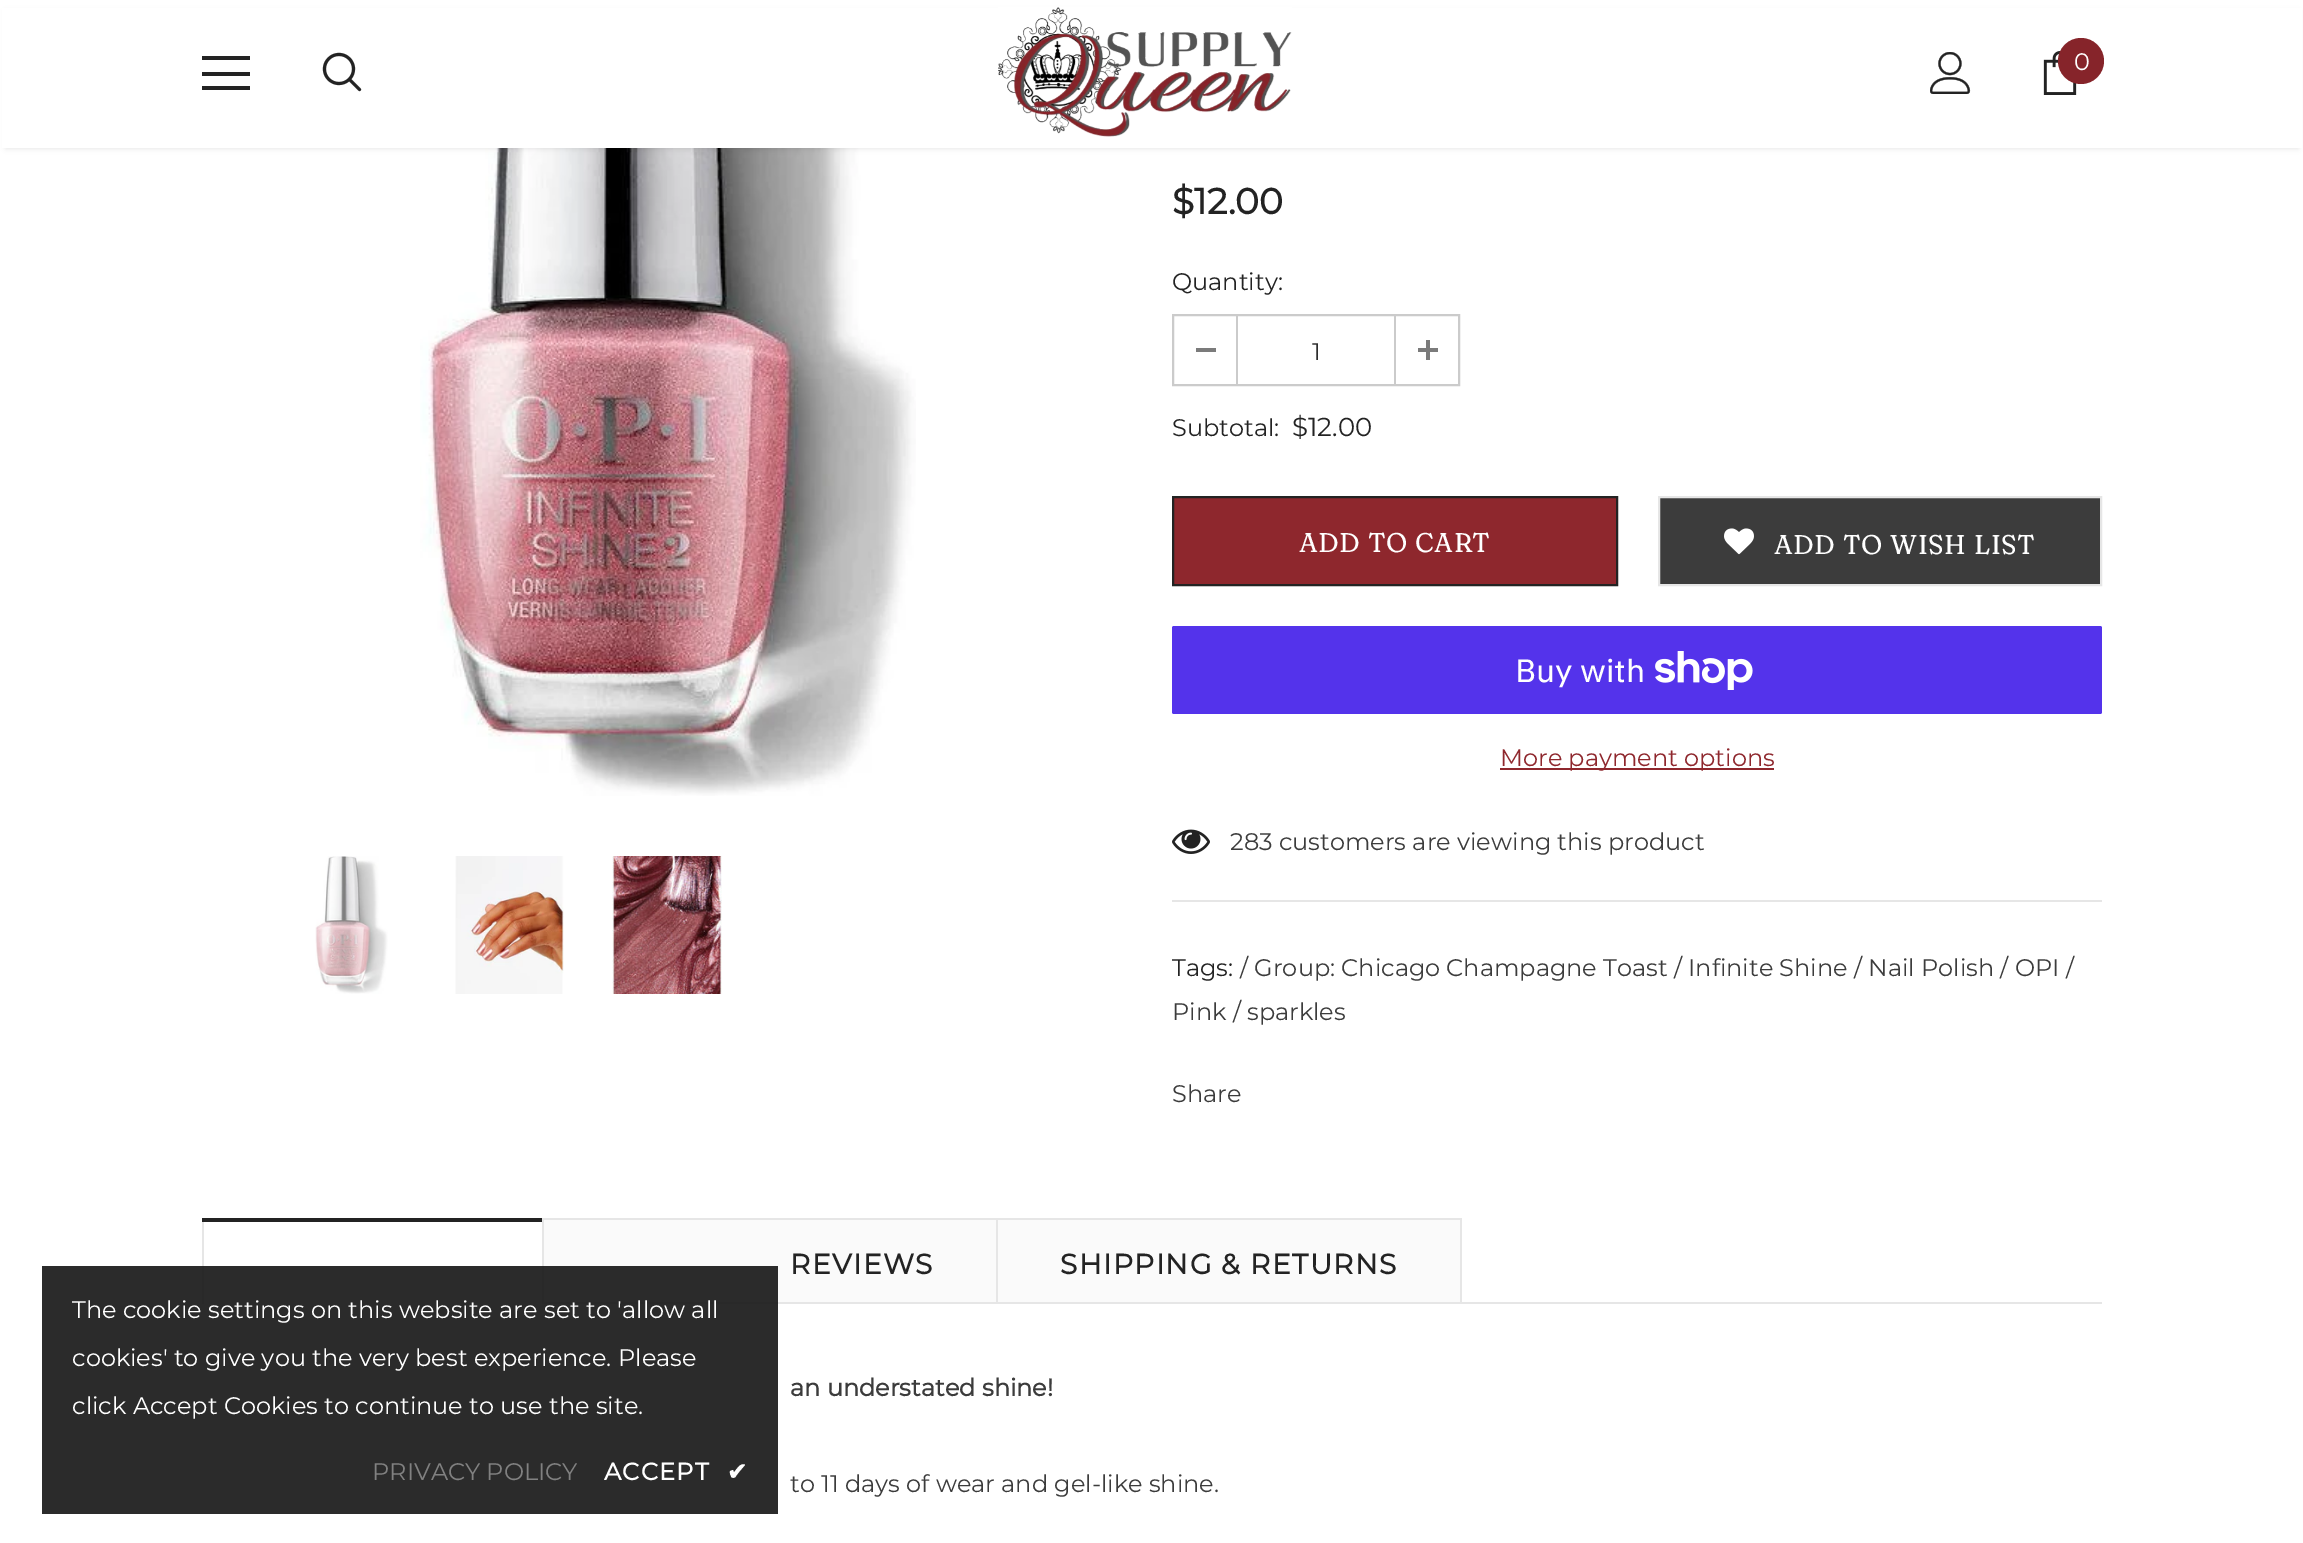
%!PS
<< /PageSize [2303 1543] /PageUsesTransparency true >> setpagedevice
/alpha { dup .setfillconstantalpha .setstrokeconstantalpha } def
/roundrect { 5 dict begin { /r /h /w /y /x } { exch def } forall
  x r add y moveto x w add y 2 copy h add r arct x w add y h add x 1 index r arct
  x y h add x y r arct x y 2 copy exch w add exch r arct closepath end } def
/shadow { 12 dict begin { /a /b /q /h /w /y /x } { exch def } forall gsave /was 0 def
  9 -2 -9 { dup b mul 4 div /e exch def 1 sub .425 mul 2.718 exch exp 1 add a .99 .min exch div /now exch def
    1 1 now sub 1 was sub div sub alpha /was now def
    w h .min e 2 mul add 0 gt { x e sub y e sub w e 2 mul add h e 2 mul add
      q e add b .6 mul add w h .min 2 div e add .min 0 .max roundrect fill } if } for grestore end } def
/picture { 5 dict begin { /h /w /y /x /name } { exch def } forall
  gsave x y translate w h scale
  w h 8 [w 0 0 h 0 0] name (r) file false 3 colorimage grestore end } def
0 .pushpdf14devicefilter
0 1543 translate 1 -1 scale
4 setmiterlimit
1 setgray
0 0 2303 1543 rectfill
(img5.rgb) 420 148 496 648 picture
0 setgray
6 12 2292 136 0 3 0.12 shadow
1 setgray
2 8 2300 140 rectfill
0.137 setgray
202 56 48 4 rectfill
202 72 48 4 rectfill
202 86 48 4 rectfill
(img1.rgb) 322 52 40 40 picture
(img2.rgb) 998 7 294 130 picture
(img3.rgb) 1930 52 41 42 picture
(img4.rgb) 2043 51 34 44 picture
0.525 0.141 0.165 setrgbcolor
newpath 2081 61 23 0 360 arc closepath fill
/Montserrat-Regular [24 0 0 -24 0 0] selectfont
1 setgray
2074 70 moveto (0) show
0.902 setgray
202 1302 1900 2 rectfill
202 1218 2 84 rectfill
1 setgray
204 1302 338 2 rectfill
0.98 setgray
544 1220 452 82 rectfill
0.137 setgray
202 1218 342 4 rectfill
0.902 setgray
542 1218 920 2 rectfill
542 1218 2 84 rectfill
0.9 alpha
0.078 setgray
42 1266 736 248 rectfill
1 alpha
1 setgray
72 1318 moveto (The cookie settings on this website are set to 'allow all) show
72 1366 moveto (cookies' to give you the very best experience. Please) show
72 1414 moveto (click Accept Cookies to continue to use the site.) show
0.506 setgray
372 1480 moveto (PRIVACY POLICY) show
/Montserrat-Bold [24 0 0 -24 0 0] selectfont
1 setgray
604 1480 moveto 1.25 0 (ACCEPT) ashow
/DejaVuSans-Bold [24 0 0 -24 0 0] selectfont
727 1480 moveto 1.25 0 (✔) ashow
(img6.rgb) 315 856 73 138 picture
(img7.rgb) 455 856 109 138 picture
(img8.rgb) 612 856 110 138 picture
/Montserrat-Bold [36 0 0 -36 0 0] selectfont
0.137 setgray
1172 214 moveto ($12.00) show
/Montserrat-Regular [24 0 0 -24 0 0] selectfont
1172 290 moveto (Quantity:) show
0.796 setgray
2 setlinewidth
1173 315 286 70 rectstroke
1236 316 2 68 rectfill
0.482 setgray
1196 348 20 4 rectfill
0.176 setgray
1312 360 moveto (1) show
0.796 setgray
1394 316 2 68 rectfill
0.482 setgray
1418 348 20 4 rectfill
1426 340 4 20 rectfill
0.137 setgray
1172 436 moveto (Subtotal:) show
/Montserrat-Regular [26 0 0 -26 0 0] selectfont
1292 436 moveto ($12.00) show
0.557 0.153 0.176 setrgbcolor
newpath 1173 497 moveto 1617 497 lineto 1617 585 lineto 1173 585 lineto closepath gsave fill grestore
0.137 setgray
stroke
/Fraunces-Bold [26 0 0 -26 0 0] selectfont
1 setgray
1299 552 moveto 1.25 0 (ADD TO CART) ashow
0.235 setgray
newpath 1659 497 moveto 2101 497 lineto 2101 585 lineto 1659 585 lineto closepath gsave fill grestore
0.902 setgray
stroke
(img9.rgb) 1724 528 30 27 picture
1 setgray
1774 554 moveto 1.25 0 (ADD TO WISH LIST) ashow
0.329 0.2 0.922 setrgbcolor
1172 626 930 88 2 roundrect fill
/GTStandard-Regular [32 0 0 -32 0 0] selectfont
1 setgray
1515 682 moveto (Buy with) show
(img10.rgb) 1655 651 98 39 picture
0.557 0.153 0.176 setrgbcolor
1500 768 274 2 rectfill
/Montserrat-Regular [24 0 0 -24 0 0] selectfont
1500 766 moveto (More payment options) show
0.902 setgray
1172 900 930 2 rectfill
(img11.rgb) 1172 829 38 25 picture
0.235 setgray
1230 850 moveto (283 customers are viewing this product) show
0.137 setgray
1172 976 moveto (Tags:) show
0.235 setgray
1240 976 moveto (/ Group: Chicago Champagne Toast / Infinite Shine / Nail Polish / OPI /) show
1172 1020 moveto (Pink / sparkles) show
1172 1102 moveto (Share) show
/Montserrat-Bold [28 0 0 -28 0 0] selectfont
0.137 setgray
790 1274 moveto 1.4 0 (REVIEWS) ashow
0.98 setgray
998 1220 462 82 rectfill
0.902 setgray
1460 1218 2 84 rectfill
996 1218 2 84 rectfill
0.137 setgray
1060 1274 moveto 1.4 0 (SHIPPING & RETURNS) ashow
/Montserrat-Bold [24 0 0 -24 0 0] selectfont
0.235 setgray
790 1396 moveto (an understated shine!) show
/Montserrat-Regular [24 0 0 -24 0 0] selectfont
790 1492 moveto (to 11 days of wear and gel-like shine.) show
.poppdf14devicefilter showpage
